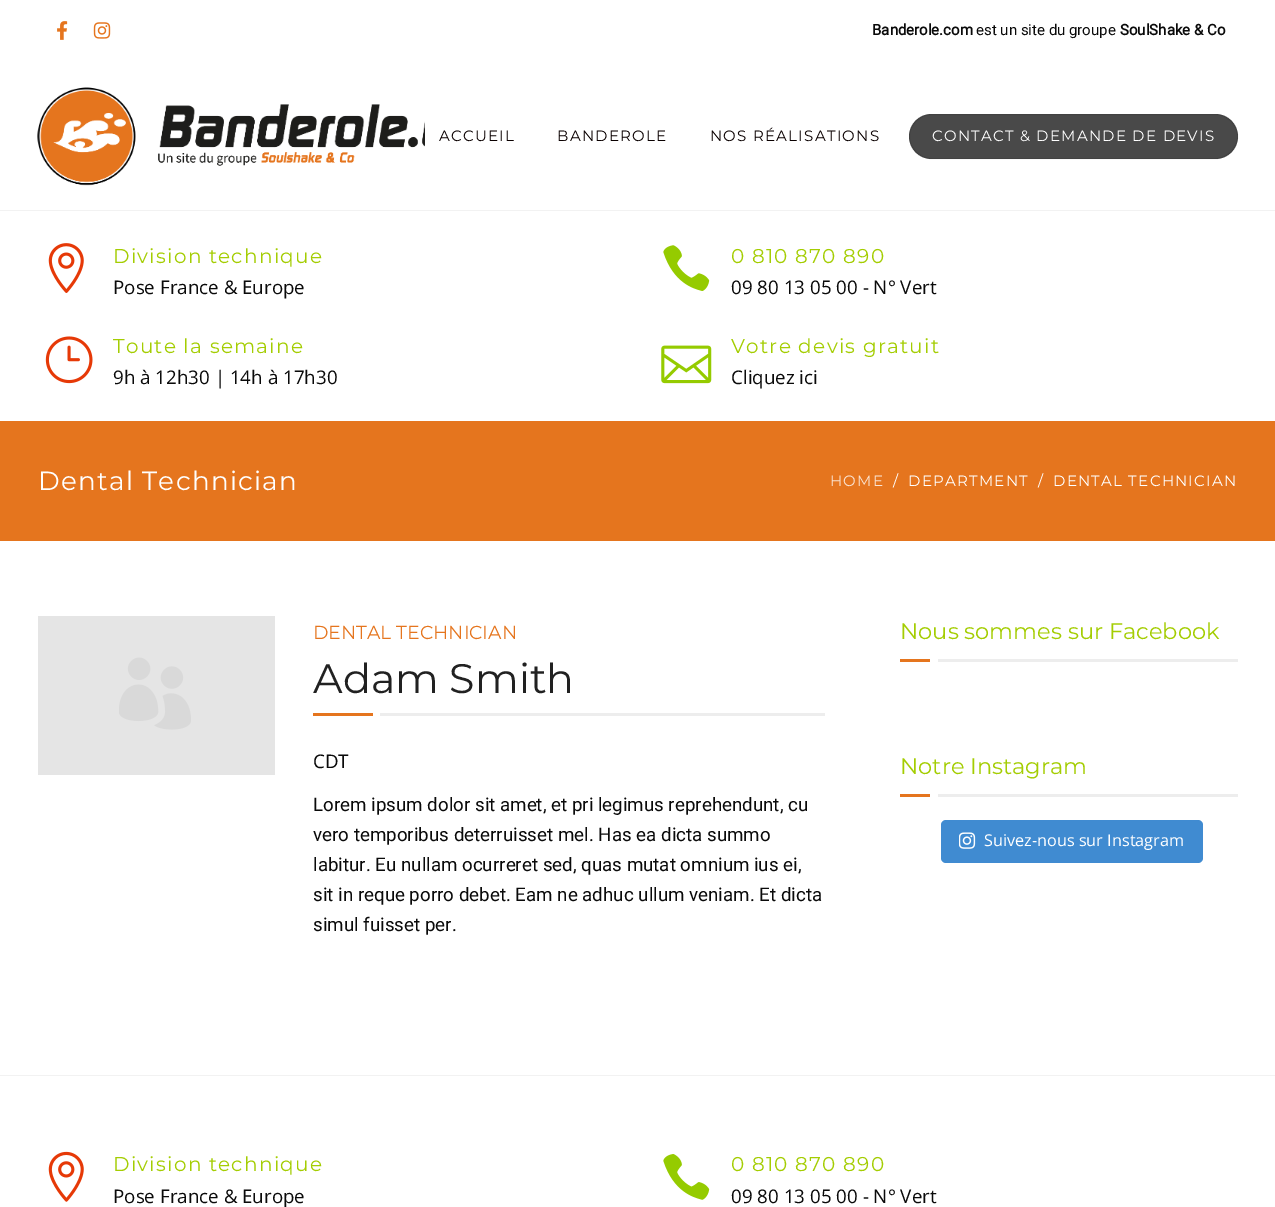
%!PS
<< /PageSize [1275 1207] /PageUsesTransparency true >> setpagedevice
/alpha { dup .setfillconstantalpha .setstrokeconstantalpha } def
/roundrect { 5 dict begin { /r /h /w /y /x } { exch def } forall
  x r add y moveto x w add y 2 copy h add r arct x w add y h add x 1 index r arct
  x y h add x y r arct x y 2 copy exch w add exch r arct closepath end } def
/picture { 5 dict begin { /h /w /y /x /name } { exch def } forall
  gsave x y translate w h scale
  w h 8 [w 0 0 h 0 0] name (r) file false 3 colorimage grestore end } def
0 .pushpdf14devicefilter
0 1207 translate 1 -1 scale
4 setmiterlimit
1 setgray
0 0 1275 1207 rectfill
(img1.rgb) 57 21 11 19 picture
(img2.rgb) 93 22 18 17 picture
/Roboto-Bold [15 0 0 -15 0 0] selectfont
0.039 setgray
872 35 moveto (Banderole.com) show
/Roboto-Regular [15 0 0 -15 0 0] selectfont
976 35 moveto (est un site du groupe) show
/Roboto-Bold [15 0 0 -15 0 0] selectfont
1120 35 moveto (SoulShake & Co) show
0.949 setgray
0 210 1275 1 rectfill
(img3.rgb) 37 87 388 99 picture
/Montserrat-Thin [15 0 0 -15 0 0] selectfont
0.039 0 0 setrgbcolor
439 141 moveto 1.25 0 (ACCUEIL) ashow
557 141 moveto 1.25 0 (BANDEROLE) ashow
710 141 moveto 1.25 0 (NOS RÉALISATIONS) ashow
0.286 setgray
909 114 329 45 22.5 roundrect fill
0.1 alpha
0 setgray
909.5 114.5 328 44 22 roundrect stroke
1 alpha
1 setgray
932 141 moveto 1.25 0 (CONTACT & DEMANDE DE DEVIS) ashow
(img4.rgb) 48 243 36 50 picture
/Montserrat-Thin [20 0 0 -20 0 0] selectfont
0.643 0.804 0.008 setrgbcolor
113 263 moveto 1.25 0 (Division technique) ashow
/OpenSans-Regular [18.75 0 0 -18.75 0 0] selectfont
0.039 setgray
113 294 moveto (Pose France & Europe) show
(img5.rgb) 663 245 47 46 picture
/Montserrat-Thin [20 0 0 -20 0 0] selectfont
0.643 0.804 0.008 setrgbcolor
731 263 moveto 1.25 0 (0 810 870 890) ashow
/OpenSans-Regular [18.75 0 0 -18.75 0 0] selectfont
0.039 setgray
731 294 moveto (09 80 13 05 00 - N° Vert) show
(img6.rgb) 45 336 48 48 picture
/Montserrat-Thin [20 0 0 -20 0 0] selectfont
0.643 0.804 0.008 setrgbcolor
113 353 moveto 1.25 0 (Toute la semaine) ashow
/OpenSans-Regular [18.75 0 0 -18.75 0 0] selectfont
0.039 setgray
113 384 moveto (9h à 12h30 | 14h à 17h30) show
(img7.rgb) 661 345 51 39 picture
/Montserrat-Thin [20 0 0 -20 0 0] selectfont
0.643 0.804 0.008 setrgbcolor
731 353 moveto 1.25 0 (Votre devis gratuit) ashow
/OpenSans-Regular [18.75 0 0 -18.75 0 0] selectfont
0.039 setgray
731 384 moveto (Cliquez ici) show
0.898 0.459 0.118 setrgbcolor
0 421 1275 120 rectfill
/Montserrat-Thin [26.25 0 0 -26.25 0 0] selectfont
1 setgray
38 490 moveto 1.25 0 (Dental Technician) ashow
/Montserrat-Thin [15 0 0 -15 0 0] selectfont
0.98 0.89 0.824 setrgbcolor
830 486 moveto 1.25 0 (HOME) ashow
1 setgray
893 486 moveto 1.25 0 (/) ashow
908 486 moveto 1.25 0 (DEPARTMENT) ashow
1038 486 moveto 1.25 0 (/) ashow
1053 486 moveto 1.25 0 (DENTAL TECHNICIAN) ashow
0.898 setgray
38 616 237 159 rectfill
(img8.rgb) 119 657 72 73 picture
/Montserrat-Thin [18.75 0 0 -18.75 0 0] selectfont
0.898 0.459 0.118 setrgbcolor
313 639 moveto (DENTAL TECHNICIAN) show
/Montserrat-Thin [41.25 0 0 -41.25 0 0] selectfont
0.129 setgray
313 693 moveto (Adam Smith) show
0.929 setgray
380 713 445 3 rectfill
0.898 0.459 0.118 setrgbcolor
313 713 60 3 rectfill
/OpenSans-Regular [18.75 0 0 -18.75 0 0] selectfont
0.039 setgray
313 768 moveto (CDT) show
/Roboto-Regular [18.75 0 0 -18.75 0 0] selectfont
313 811 moveto (Lorem ipsum dolor sit amet, et pri legimus reprehendunt, cu) show
313 841 moveto (vero temporibus deterruisset mel. Has ea dicta summo) show
313 871 moveto (labitur. Eu nullam ocurreret sed, quas mutat omnium ius ei,) show
313 901 moveto (sit in reque porro debet. Eam ne adhuc ullum veniam. Et dicta) show
313 931 moveto (simul fuisset per.) show
/Montserrat-Thin [22.5 0 0 -22.5 0 0] selectfont
0.643 0.804 0.008 setrgbcolor
900 639 moveto (Nous sommes sur Facebook) show
0.898 0.459 0.118 setrgbcolor
900 659 30 3 rectfill
0.929 setgray
938 659 300 3 rectfill
0.643 0.804 0.008 setrgbcolor
900 774 moveto (Notre Instagram) show
0.898 0.459 0.118 setrgbcolor
900 794 30 3 rectfill
0.929 setgray
938 794 300 3 rectfill
0.251 0.545 0.82 setrgbcolor
941 820 262 43 5 roundrect fill
(img9.rgb) 959 832 17 17 picture
/OpenSans-Regular [16.25 0 0 -16.25 0 0] selectfont
1 setgray
984 846 moveto (Suivez-nous sur Instagram) show
0.949 setgray
0 1075 1275 1 rectfill
(img10.rgb) 48 1151 36 51 picture
/Montserrat-Thin [20 0 0 -20 0 0] selectfont
0.643 0.804 0.008 setrgbcolor
113 1171 moveto 1.25 0 (Division technique) ashow
/OpenSans-Regular [18.75 0 0 -18.75 0 0] selectfont
0.039 setgray
113 1203 moveto (Pose France & Europe) show
(img11.rgb) 663 1154 47 46 picture
/Montserrat-Thin [20 0 0 -20 0 0] selectfont
0.643 0.804 0.008 setrgbcolor
731 1171 moveto 1.25 0 (0 810 870 890) ashow
/OpenSans-Regular [18.75 0 0 -18.75 0 0] selectfont
0.039 setgray
731 1203 moveto (09 80 13 05 00 - N° Vert) show
.poppdf14devicefilter showpage
